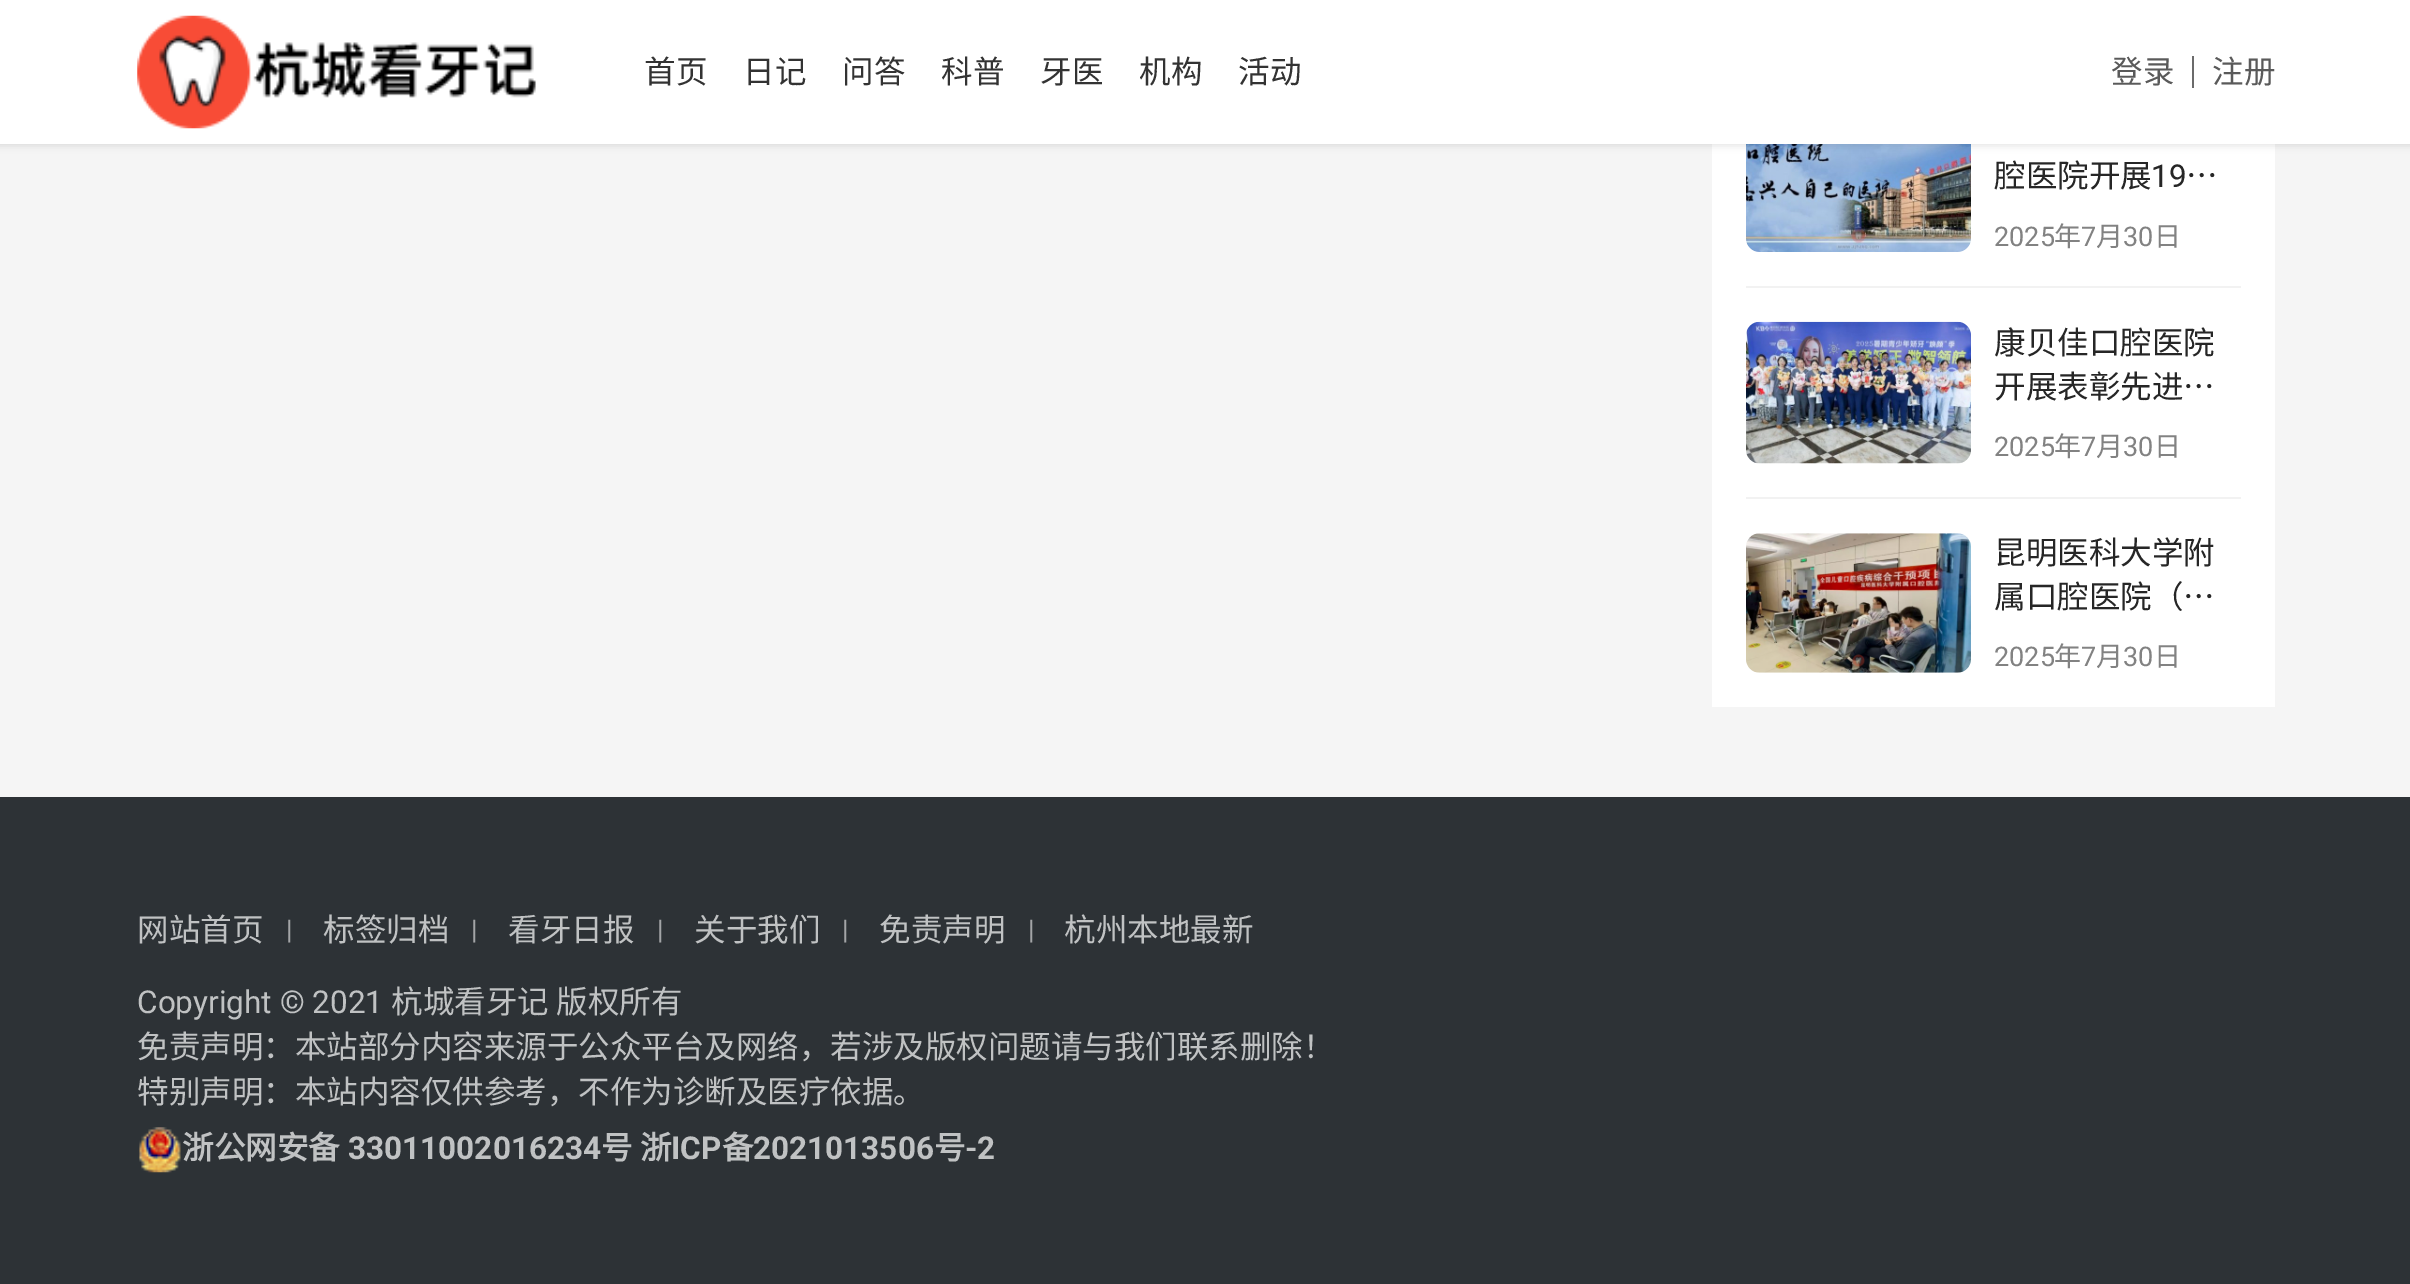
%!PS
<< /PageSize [2410 1284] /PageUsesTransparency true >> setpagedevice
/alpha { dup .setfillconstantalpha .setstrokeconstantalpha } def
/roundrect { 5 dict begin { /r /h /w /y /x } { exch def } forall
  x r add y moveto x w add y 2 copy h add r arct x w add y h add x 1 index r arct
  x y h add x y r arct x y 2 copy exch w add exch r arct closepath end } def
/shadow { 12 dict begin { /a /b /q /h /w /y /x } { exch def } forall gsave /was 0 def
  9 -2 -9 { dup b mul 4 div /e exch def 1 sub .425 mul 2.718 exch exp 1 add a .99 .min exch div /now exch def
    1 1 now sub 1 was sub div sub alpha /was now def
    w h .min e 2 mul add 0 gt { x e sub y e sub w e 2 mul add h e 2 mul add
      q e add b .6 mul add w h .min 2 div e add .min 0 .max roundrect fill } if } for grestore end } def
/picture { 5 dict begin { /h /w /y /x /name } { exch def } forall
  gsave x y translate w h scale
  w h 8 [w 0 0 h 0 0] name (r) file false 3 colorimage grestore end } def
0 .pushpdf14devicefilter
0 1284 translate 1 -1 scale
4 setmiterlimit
0.961 setgray
0 0 2410 1284 rectfill
1 setgray
1712 144 563 563 rectfill
(img2.rgb) 1746 144 225 108 picture
0 setgray
-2 -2 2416 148 0 3.5 0.1 shadow
1 setgray
0 0 2410 144 rectfill
(img1.rgb) 137 15 399 114 picture
/NotoSansCJKSC-Regular [31.5 0 0 -31.5 0 0] selectfont
0.2 setgray
644 83 moveto (首页) show
743 83 moveto (日记) show
842 83 moveto (问答) show
941 83 moveto (科普) show
1040 83 moveto (牙医) show
1139 83 moveto (机构) show
1238 83 moveto (活动) show
0.353 setgray
2111 83 moveto (登录) show
0.42 setgray
2192 56 2 32 rectfill
0.353 setgray
2212 83 moveto (注册) show
0.949 setgray
1746 286 495 2 rectfill
0.149 setgray
1994 187 moveto (腔医院开展) show
/Roboto-Regular [31.5 0 0 -31.5 0 0] selectfont
2151 187 moveto (19) show
/NotoSansCJKSC-Regular [31.5 0 0 -31.5 0 0] selectfont
2186 187 moveto (…) show
/Roboto-Regular [27 0 0 -27 0 0] selectfont
0.51 setgray
1994 246 moveto (2025) show
/NotoSansCJKSC-Regular [27 0 0 -27 0 0] selectfont
2054 246 moveto (年) show
/Roboto-Regular [27 0 0 -27 0 0] selectfont
2081 246 moveto (7) show
/NotoSansCJKSC-Regular [27 0 0 -27 0 0] selectfont
2096 246 moveto (月) show
/Roboto-Regular [27 0 0 -27 0 0] selectfont
2123 246 moveto (30) show
/NotoSansCJKSC-Regular [27 0 0 -27 0 0] selectfont
2154 246 moveto (日) show
0.949 setgray
1746 497 495 2 rectfill
(img3.rgb) 1746 321 225 143 picture
/NotoSansCJKSC-Regular [31.5 0 0 -31.5 0 0] selectfont
0.149 setgray
1994 354 moveto (康贝佳口腔医院) show
1994 398 moveto (开展表彰先进…) show
/Roboto-Regular [27 0 0 -27 0 0] selectfont
0.51 setgray
1994 456 moveto (2025) show
/NotoSansCJKSC-Regular [27 0 0 -27 0 0] selectfont
2054 456 moveto (年) show
/Roboto-Regular [27 0 0 -27 0 0] selectfont
2081 456 moveto (7) show
/NotoSansCJKSC-Regular [27 0 0 -27 0 0] selectfont
2096 456 moveto (月) show
/Roboto-Regular [27 0 0 -27 0 0] selectfont
2123 456 moveto (30) show
/NotoSansCJKSC-Regular [27 0 0 -27 0 0] selectfont
2154 456 moveto (日) show
(img4.rgb) 1746 533 225 140 picture
/NotoSansCJKSC-Regular [31.5 0 0 -31.5 0 0] selectfont
0.149 setgray
1994 564 moveto (昆明医科大学附) show
1994 608 moveto (属口腔医院（…) show
/Roboto-Regular [27 0 0 -27 0 0] selectfont
0.51 setgray
1994 666 moveto (2025) show
/NotoSansCJKSC-Regular [27 0 0 -27 0 0] selectfont
2054 666 moveto (年) show
/Roboto-Regular [27 0 0 -27 0 0] selectfont
2081 666 moveto (7) show
/NotoSansCJKSC-Regular [27 0 0 -27 0 0] selectfont
2096 666 moveto (月) show
/Roboto-Regular [27 0 0 -27 0 0] selectfont
2123 666 moveto (30) show
/NotoSansCJKSC-Regular [27 0 0 -27 0 0] selectfont
2154 666 moveto (日) show
0.176 0.196 0.212 setrgbcolor
0 797 2410 487 rectfill
/NotoSansCJKSC-Regular [31.5 0 0 -31.5 0 0] selectfont
0.753 0.761 0.765 setrgbcolor
137 941 moveto (网站首页) show
/Roboto-Regular [27 0 0 -27 0 0] selectfont
0.639 0.647 0.655 setrgbcolor
286 939 moveto (|) show
/NotoSansCJKSC-Regular [31.5 0 0 -31.5 0 0] selectfont
0.753 0.761 0.765 setrgbcolor
323 941 moveto (标签归档) show
/Roboto-Regular [27 0 0 -27 0 0] selectfont
0.639 0.647 0.655 setrgbcolor
471 939 moveto (|) show
/NotoSansCJKSC-Regular [31.5 0 0 -31.5 0 0] selectfont
0.753 0.761 0.765 setrgbcolor
508 941 moveto (看牙日报) show
/Roboto-Regular [27 0 0 -27 0 0] selectfont
0.639 0.647 0.655 setrgbcolor
657 939 moveto (|) show
/NotoSansCJKSC-Regular [31.5 0 0 -31.5 0 0] selectfont
0.753 0.761 0.765 setrgbcolor
694 941 moveto (关于我们) show
/Roboto-Regular [27 0 0 -27 0 0] selectfont
0.639 0.647 0.655 setrgbcolor
842 939 moveto (|) show
/NotoSansCJKSC-Regular [31.5 0 0 -31.5 0 0] selectfont
0.753 0.761 0.765 setrgbcolor
879 941 moveto (免责声明) show
/Roboto-Regular [27 0 0 -27 0 0] selectfont
0.639 0.647 0.655 setrgbcolor
1028 939 moveto (|) show
/NotoSansCJKSC-Regular [31.5 0 0 -31.5 0 0] selectfont
0.753 0.761 0.765 setrgbcolor
1064 941 moveto (杭州本地最新) show
/Roboto-Regular [31.5 0 0 -31.5 0 0] selectfont
137 1013 moveto (Copyright © 2021) show
/NotoSansCJKSC-Regular [31.5 0 0 -31.5 0 0] selectfont
391 1013 moveto (杭城看牙记) show
556 1013 moveto (版权所有) show
137 1058 moveto (免责声明：本站部分内容来源于公众平台及网络，若涉及版权问题请与我们联系删除！) show
137 1103 moveto (特别声明：本站内容仅供参考，不作为诊断及医疗依据。) show
(img5.rgb) 139 1127 42 46 picture
/NotoSansCJKSC-Bold [31.5 0 0 -31.5 0 0] selectfont
182 1159 moveto (浙公网安备) show
/Roboto-Bold [31.5 0 0 -31.5 0 0] selectfont
348 1159 moveto (33011002016234) show
/NotoSansCJKSC-Bold [31.5 0 0 -31.5 0 0] selectfont
601 1159 moveto (号) show
640 1159 moveto (浙) show
/Roboto-Bold [31.5 0 0 -31.5 0 0] selectfont
671 1159 moveto (ICP) show
/NotoSansCJKSC-Bold [31.5 0 0 -31.5 0 0] selectfont
722 1159 moveto (备) show
/Roboto-Bold [31.5 0 0 -31.5 0 0] selectfont
753 1159 moveto (2021013506) show
/NotoSansCJKSC-Bold [31.5 0 0 -31.5 0 0] selectfont
934 1159 moveto (号) show
/Roboto-Bold [31.5 0 0 -31.5 0 0] selectfont
965 1159 moveto (-2) show
.poppdf14devicefilter showpage
